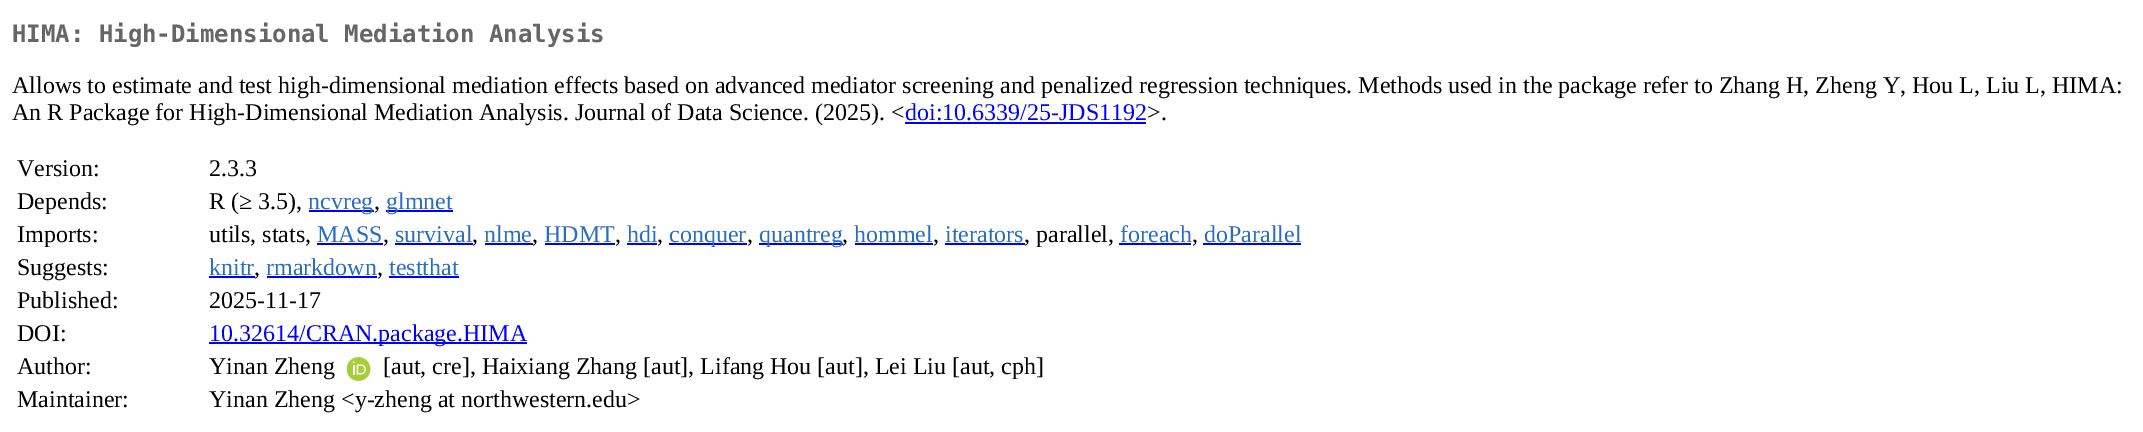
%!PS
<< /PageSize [2143 432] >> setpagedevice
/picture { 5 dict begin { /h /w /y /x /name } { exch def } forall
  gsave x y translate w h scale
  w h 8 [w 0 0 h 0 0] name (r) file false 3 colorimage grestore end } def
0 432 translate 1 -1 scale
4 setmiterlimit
1 setgray
0 0 2143 432 rectfill
/DejaVuSansMono-Bold [24 0 0 -24 0 0] selectfont
0.4 setgray
12 42 moveto (HIMA: High-Dimensional Mediation Analysis) show
/LiberationSerif-Regular [24 0 0 -24 0 0] selectfont
0 setgray
12 93 moveto (Allows to estimate and test high-dimensional mediation effects based on advanced mediator screening and penalized regression techniques. Methods used in the package refer to Zhang H, Zheng Y, Hou L, Liu L, HIMA:) show
12 120 moveto (An R Package for High-Dimensional Mediation Analysis. Journal of Data Science. \(2025\). <) show
0 0 1 setrgbcolor
905 120 moveto (doi:10.6339/25-JDS1192) show
905 122 241 2 rectfill
0 setgray
1147 120 moveto (>.) show
17 176 moveto (Version:) show
209 176 moveto (2.3.3) show
17 209 moveto (Depends:) show
209 209 moveto (R \(≥ 3.5\),) show
0 0 1 setrgbcolor
309 210 65 2 rectfill
0.153 0.427 0.765 setrgbcolor
308 209 moveto (ncvreg) show
0 setgray
374 209 moveto (,) show
0 0 1 setrgbcolor
386 210 67 2 rectfill
0.153 0.427 0.765 setrgbcolor
386 209 moveto (glmnet) show
0 setgray
17 242 moveto (Imports:) show
209 242 moveto (utils, stats,) show
0.153 0.427 0.765 setrgbcolor
317 242 moveto (MASS) show
0 0 1 setrgbcolor
317 243 66 2 rectfill
0 setgray
383 242 moveto (,) show
0.153 0.427 0.765 setrgbcolor
395 242 moveto (survival) show
0 0 1 setrgbcolor
395 243 78 2 rectfill
0 setgray
472 242 moveto (,) show
0.153 0.427 0.765 setrgbcolor
484 242 moveto (nlme) show
0 0 1 setrgbcolor
485 243 48 2 rectfill
0 setgray
532 242 moveto (,) show
0.153 0.427 0.765 setrgbcolor
544 242 moveto (HDMT) show
0 0 1 setrgbcolor
545 243 70 2 rectfill
0 setgray
615 242 moveto (,) show
0.153 0.427 0.765 setrgbcolor
627 242 moveto (hdi) show
0 0 1 setrgbcolor
627 243 30 2 rectfill
0 setgray
657 242 moveto (,) show
0 0 1 setrgbcolor
669 243 78 2 rectfill
0.153 0.427 0.765 setrgbcolor
669 242 moveto (conquer) show
0 setgray
747 242 moveto (,) show
0 0 1 setrgbcolor
759 243 84 2 rectfill
0.153 0.427 0.765 setrgbcolor
759 242 moveto (quantreg) show
0 setgray
842 242 moveto (,) show
0.153 0.427 0.765 setrgbcolor
854 242 moveto (hommel) show
0 0 1 setrgbcolor
855 243 78 2 rectfill
0 setgray
933 242 moveto (,) show
0.153 0.427 0.765 setrgbcolor
945 242 moveto (iterators) show
0 0 1 setrgbcolor
945 243 80 2 rectfill
0 setgray
1024 242 moveto (, parallel,) show
0.153 0.427 0.765 setrgbcolor
1120 242 moveto (foreach) show
0 0 1 setrgbcolor
1119 243 72 2 rectfill
0 setgray
1192 242 moveto (,) show
0.153 0.427 0.765 setrgbcolor
1204 242 moveto (doParallel) show
0 0 1 setrgbcolor
1203 243 98 2 rectfill
0 setgray
17 275 moveto (Suggests:) show
0.153 0.427 0.765 setrgbcolor
209 275 moveto (knitr) show
0 0 1 setrgbcolor
209 276 46 2 rectfill
0 setgray
254 275 moveto (,) show
0.153 0.427 0.765 setrgbcolor
266 275 moveto (rmarkdown) show
0 0 1 setrgbcolor
267 276 110 2 rectfill
0 setgray
377 275 moveto (,) show
0.153 0.427 0.765 setrgbcolor
389 275 moveto (testthat) show
0 0 1 setrgbcolor
389 276 70 2 rectfill
0 setgray
17 308 moveto (Published:) show
209 308 moveto (2025-11-17) show
17 341 moveto (DOI:) show
0 0 1 setrgbcolor
209 342 318 2 rectfill
209 341 moveto (10.32614/CRAN.package.HIMA) show
0 setgray
17 374 moveto (Author:) show
209 374 moveto (Yinan Zheng) show
(img1.rgb) 347 357 24 24 picture
383 374 moveto ([aut, cre], Haixiang Zhang [aut], Lifang Hou [aut], Lei Liu [aut, cph]) show
17 407 moveto (Maintainer:) show
209 407 moveto (Yinan Zheng <y-zheng at northwestern.edu>) show
showpage
